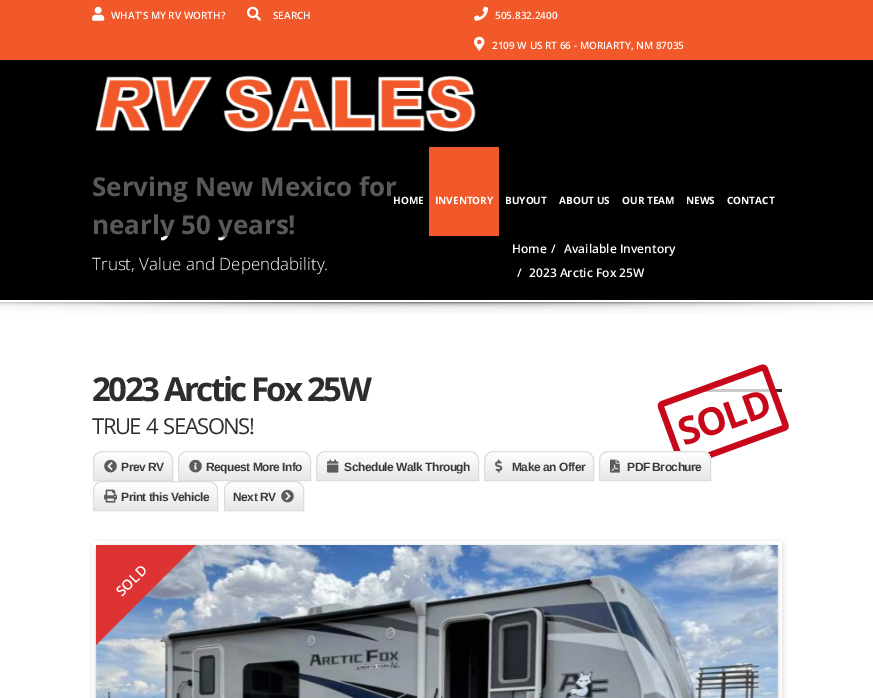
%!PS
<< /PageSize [873 698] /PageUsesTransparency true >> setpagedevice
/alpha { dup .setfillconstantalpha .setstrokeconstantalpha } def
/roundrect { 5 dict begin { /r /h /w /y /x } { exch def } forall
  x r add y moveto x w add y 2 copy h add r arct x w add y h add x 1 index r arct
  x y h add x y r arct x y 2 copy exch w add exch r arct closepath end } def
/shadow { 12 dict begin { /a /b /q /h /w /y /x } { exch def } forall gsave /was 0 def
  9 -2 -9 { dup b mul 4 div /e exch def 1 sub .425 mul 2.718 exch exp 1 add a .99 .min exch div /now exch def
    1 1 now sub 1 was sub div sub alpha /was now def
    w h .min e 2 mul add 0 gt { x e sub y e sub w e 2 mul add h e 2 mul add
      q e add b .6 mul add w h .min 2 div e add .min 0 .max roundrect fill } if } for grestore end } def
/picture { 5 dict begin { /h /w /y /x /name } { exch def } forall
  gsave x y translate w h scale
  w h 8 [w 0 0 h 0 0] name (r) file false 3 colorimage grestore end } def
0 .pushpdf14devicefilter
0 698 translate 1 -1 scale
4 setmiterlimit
1 setgray
0 0 873 698 rectfill
0 setgray
0 60 873 240 rectfill
/OpenSans-Bold [26 0 0 -26 0 0] selectfont
1 setgray
92 196 moveto (Serving New Mexico for) show
92 234 moveto (nearly 50 years!) show
0.65 alpha
0 setgray
92 176 305 60 rectfill
1 alpha
0.945 0.349 0.165 setrgbcolor
0 0 873 60 rectfill
(img1.rgb) 92 6 13 15 picture
/OpenSans-SemiBold [10 0 0 -10 0 0] selectfont
1 setgray
111 19 moveto (WHAT'S MY RV WORTH?) show
(img2.rgb) 247 6 14 15 picture
273 19 moveto (SEARCH) show
(img3.rgb) 474 6 14 15 picture
495 19 moveto (505.832.2400) show
(img4.rgb) 474 36 11 15 picture
492 49 moveto (2109 W US RT 66 - MORIARTY, NM 87035) show
(img5.rgb) 95 75 381 57 picture
/OpenSans-Bold [10 0 0 -10 0 0] selectfont
393 204 moveto (HOME) show
0.945 0.349 0.165 setrgbcolor
429 147 70 89 rectfill
1 setgray
435 204 moveto (INVENTORY) show
505 204 moveto (BUYOUT) show
559 204 moveto (ABOUT US) show
622 204 moveto (OUR TEAM) show
686 204 moveto (NEWS) show
727 204 moveto (CONTACT) show
(img6.rgb) 163 236 63 4 picture
/OpenSans-Light [17 0 0 -17 0 0] selectfont
92 270 moveto (Trust, Value and Dependability.) show
/OpenSans-SemiBold [12 0 0 -12 0 0] selectfont
512 253 moveto (Home) show
551 253 moveto (/) show
564 253 moveto (Available Inventory) show
517 277 moveto (/) show
529 277 moveto (2023 Arctic Fox 25W) show
(img7.rgb) 0 302 873 12 picture
/OpenSans-Bold [33 0 0 -33 0 0] selectfont
0.176 setgray
92 401 moveto -2.5 0 (2023 Arctic Fox 25W) ashow
/OpenSans-Regular [22 0 0 -22 0 0] selectfont
92 434 moveto 2 0 32 -1.5 0 (TRUE 4 SEASONS!) awidthshow
703 389 79 3 rectfill
0.75 alpha
1 setgray
newpath 661 401 moveto 761 365 lineto 764 364 767 365 768 368 curveto 788 424 lineto 789 427 788 430 785 431 curveto 685 467 lineto 682 468 679 467 679 464 curveto 658 408 lineto 657 405 658 402 661 401 curveto closepath fill
1 alpha
0.78 0.031 0.106 setrgbcolor
6 setlinewidth
newpath 662 404 moveto 762.5 367.5 lineto 763.5 367.5 764.5 368 765 369 curveto 785.5 425 lineto 786 426.5 785.5 427.5 784 428 curveto 684 464.5 lineto 683 464.5 681.5 464 681.5 463 curveto 661 407 lineto 660.5 405.5 661 404.5 662 404 curveto closepath stroke
/OpenSans-Bold [38 0 0 -38 0 0] selectfont
gsave 684 446 translate -20 rotate 0 0 moveto -1.5 0 (SOLD) ashow grestore
gsave
newpath 102 451 moveto 164 451 lineto 169 451 173 455 173 460 curveto 173 481 lineto 93 481 lineto 93 460 lineto 93 455 97 451 102 451 curveto closepath clip newpath
gsave newpath 93 452 moveto 173 452 lineto 173 480 lineto 93 480 lineto closepath clip newpath
<< /ShadingType 2 /ColorSpace /DeviceRGB /Coords [133 452 133 480] /Extend [true true] /Function << /FunctionType 3 /Domain [0 1] /Functions [<< /FunctionType 2 /Domain [0 1] /C0 [1 1 1] /C1 [0.906 0.906 0.906] /N 1 >> << /FunctionType 2 /Domain [0 1] /C0 [0.906 0.906 0.906] /C1 [0.906 0.906 0.906] /N 1 >>] /Bounds [0.99] /Encode [0 1 0 1] >> >> shfill grestore
grestore
0.863 setgray
1 setlinewidth
newpath 102 451.5 moveto 164 451.5 lineto 168.5 451.5 172.5 455.5 172.5 460 curveto 172.5 480.5 lineto 93.5 480.5 lineto 93.5 460 lineto 93.5 455.5 97.5 451.5 102 451.5 curveto closepath stroke
(img8.rgb) 104 459 13 14 picture
/LiberationSans-Bold [12 0 0 -12 0 0] selectfont
0.227 setgray
121 471 moveto -0.5 0 (Prev RV) ashow
gsave
newpath 187 451 moveto 302 451 lineto 307 451 311 455 311 460 curveto 311 481 lineto 178 481 lineto 178 460 lineto 178 455 182 451 187 451 curveto closepath clip newpath
gsave newpath 178 452 moveto 311 452 lineto 311 480 lineto 178 480 lineto closepath clip newpath
<< /ShadingType 2 /ColorSpace /DeviceRGB /Coords [245 452 245 480] /Extend [true true] /Function << /FunctionType 3 /Domain [0 1] /Functions [<< /FunctionType 2 /Domain [0 1] /C0 [1 1 1] /C1 [0.906 0.906 0.906] /N 1 >> << /FunctionType 2 /Domain [0 1] /C0 [0.906 0.906 0.906] /C1 [0.906 0.906 0.906] /N 1 >>] /Bounds [0.99] /Encode [0 1 0 1] >> >> shfill grestore
grestore
0.863 setgray
newpath 187 451.5 moveto 302 451.5 lineto 306.5 451.5 310.5 455.5 310.5 460 curveto 310.5 480.5 lineto 178.5 480.5 lineto 178.5 460 lineto 178.5 455.5 182.5 451.5 187 451.5 curveto closepath stroke
(img9.rgb) 189 459 13 14 picture
0.227 setgray
206 471 moveto -0.5 0 (Request More Info) ashow
gsave
newpath 325 451 moveto 470 451 lineto 475 451 479 455 479 460 curveto 479 481 lineto 316 481 lineto 316 460 lineto 316 455 320 451 325 451 curveto closepath clip newpath
gsave newpath 316 452 moveto 479 452 lineto 479 480 lineto 316 480 lineto closepath clip newpath
<< /ShadingType 2 /ColorSpace /DeviceRGB /Coords [398 452 398 480] /Extend [true true] /Function << /FunctionType 3 /Domain [0 1] /Functions [<< /FunctionType 2 /Domain [0 1] /C0 [1 1 1] /C1 [0.906 0.906 0.906] /N 1 >> << /FunctionType 2 /Domain [0 1] /C0 [0.906 0.906 0.906] /C1 [0.906 0.906 0.906] /N 1 >>] /Bounds [0.99] /Encode [0 1 0 1] >> >> shfill grestore
grestore
0.863 setgray
newpath 325 451.5 moveto 470 451.5 lineto 474.5 451.5 478.5 455.5 478.5 460 curveto 478.5 480.5 lineto 316.5 480.5 lineto 316.5 460 lineto 316.5 455.5 320.5 451.5 325 451.5 curveto closepath stroke
(img10.rgb) 327 459 12 14 picture
0.227 setgray
344 471 moveto -0.5 0 (Schedule Walk Through) ashow
gsave
newpath 493 451 moveto 585 451 lineto 590 451 594 455 594 460 curveto 594 481 lineto 484 481 lineto 484 460 lineto 484 455 488 451 493 451 curveto closepath clip newpath
gsave newpath 484 452 moveto 594 452 lineto 594 480 lineto 484 480 lineto closepath clip newpath
<< /ShadingType 2 /ColorSpace /DeviceRGB /Coords [539 452 539 480] /Extend [true true] /Function << /FunctionType 3 /Domain [0 1] /Functions [<< /FunctionType 2 /Domain [0 1] /C0 [1 1 1] /C1 [0.906 0.906 0.906] /N 1 >> << /FunctionType 2 /Domain [0 1] /C0 [0.906 0.906 0.906] /C1 [0.906 0.906 0.906] /N 1 >>] /Bounds [0.99] /Encode [0 1 0 1] >> >> shfill grestore
grestore
0.863 setgray
newpath 493 451.5 moveto 585 451.5 lineto 589.5 451.5 593.5 455.5 593.5 460 curveto 593.5 480.5 lineto 484.5 480.5 lineto 484.5 460 lineto 484.5 455.5 488.5 451.5 493 451.5 curveto closepath stroke
(img11.rgb) 495 459 8 14 picture
0.227 setgray
512 471 moveto -0.5 0 (Make an Offer) ashow
gsave
newpath 608 451 moveto 702 451 lineto 707 451 711 455 711 460 curveto 711 481 lineto 599 481 lineto 599 460 lineto 599 455 603 451 608 451 curveto closepath clip newpath
gsave newpath 599 452 moveto 711 452 lineto 711 480 lineto 599 480 lineto closepath clip newpath
<< /ShadingType 2 /ColorSpace /DeviceRGB /Coords [655 452 655 480] /Extend [true true] /Function << /FunctionType 3 /Domain [0 1] /Functions [<< /FunctionType 2 /Domain [0 1] /C0 [1 1 1] /C1 [0.906 0.906 0.906] /N 1 >> << /FunctionType 2 /Domain [0 1] /C0 [0.906 0.906 0.906] /C1 [0.906 0.906 0.906] /N 1 >>] /Bounds [0.99] /Encode [0 1 0 1] >> >> shfill grestore
grestore
0.863 setgray
newpath 608 451.5 moveto 702 451.5 lineto 706.5 451.5 710.5 455.5 710.5 460 curveto 710.5 480.5 lineto 599.5 480.5 lineto 599.5 460 lineto 599.5 455.5 603.5 451.5 608 451.5 curveto closepath stroke
(img12.rgb) 610 459 10 14 picture
0.227 setgray
627 471 moveto -0.5 0 (PDF Brochure) ashow
gsave
newpath 102 481 moveto 209 481 lineto 214 481 218 485 218 490 curveto 218 511 lineto 93 511 lineto 93 490 lineto 93 485 97 481 102 481 curveto closepath clip newpath
gsave newpath 93 482 moveto 218 482 lineto 218 510 lineto 93 510 lineto closepath clip newpath
<< /ShadingType 2 /ColorSpace /DeviceRGB /Coords [156 482 156 510] /Extend [true true] /Function << /FunctionType 3 /Domain [0 1] /Functions [<< /FunctionType 2 /Domain [0 1] /C0 [1 1 1] /C1 [0.906 0.906 0.906] /N 1 >> << /FunctionType 2 /Domain [0 1] /C0 [0.906 0.906 0.906] /C1 [0.906 0.906 0.906] /N 1 >>] /Bounds [0.99] /Encode [0 1 0 1] >> >> shfill grestore
grestore
0.863 setgray
newpath 102 481.5 moveto 209 481.5 lineto 213.5 481.5 217.5 485.5 217.5 490 curveto 217.5 510.5 lineto 93.5 510.5 lineto 93.5 490 lineto 93.5 485.5 97.5 481.5 102 481.5 curveto closepath stroke
(img13.rgb) 104 489 13 14 picture
0.227 setgray
121 501 moveto -0.5 0 (Print this Vehicle) ashow
gsave
newpath 233 481 moveto 295 481 lineto 300 481 304 485 304 490 curveto 304 511 lineto 224 511 lineto 224 490 lineto 224 485 228 481 233 481 curveto closepath clip newpath
gsave newpath 224 482 moveto 304 482 lineto 304 510 lineto 224 510 lineto closepath clip newpath
<< /ShadingType 2 /ColorSpace /DeviceRGB /Coords [264 482 264 510] /Extend [true true] /Function << /FunctionType 3 /Domain [0 1] /Functions [<< /FunctionType 2 /Domain [0 1] /C0 [1 1 1] /C1 [0.906 0.906 0.906] /N 1 >> << /FunctionType 2 /Domain [0 1] /C0 [0.906 0.906 0.906] /C1 [0.906 0.906 0.906] /N 1 >>] /Bounds [0.99] /Encode [0 1 0 1] >> >> shfill grestore
grestore
0.863 setgray
newpath 233 481.5 moveto 295 481.5 lineto 299.5 481.5 303.5 485.5 303.5 490 curveto 303.5 510.5 lineto 224.5 510.5 lineto 224.5 490 lineto 224.5 485.5 228.5 481.5 233 481.5 curveto closepath stroke
0.227 setgray
233 501 moveto -0.5 0 (Next RV) ashow
(img14.rgb) 281 489 13 14 picture
0.8 setgray
93 542 690 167 3 2.5 0.75 shadow
1 setgray
4 setlinewidth
94 543 686 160 1 roundrect stroke
0 setgray
96 546 682 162 4 2 0.2 shadow
(img15.rgb) 96 545 682 153 picture
0.867 0.2 0.2 setrgbcolor
newpath 96 545 moveto 196 545 lineto 96 645 lineto closepath fill
/OpenSans-SemiBold [14 0 0 -14 0 0] selectfont
1 setgray
gsave 122 597 translate -45 rotate 0 0 moveto (SOLD) show grestore
.poppdf14devicefilter showpage
